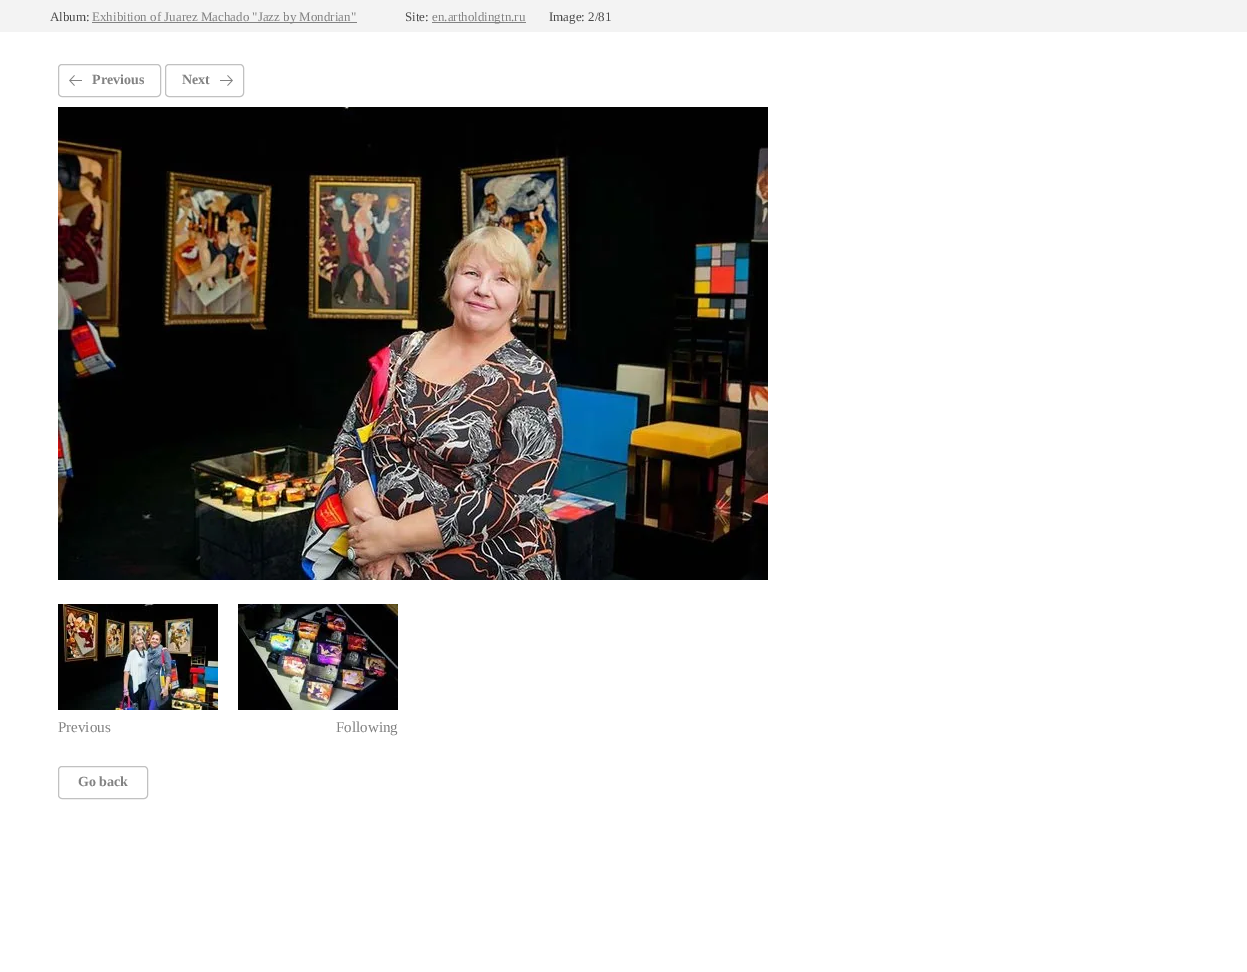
%!PS
<< /PageSize [1247 972] >> setpagedevice
/roundrect { 5 dict begin { /r /h /w /y /x } { exch def } forall
  x r add y moveto x w add y 2 copy h add r arct x w add y h add x 1 index r arct
  x y h add x y r arct x y 2 copy exch w add exch r arct closepath end } def
/picture { 5 dict begin { /h /w /y /x /name } { exch def } forall
  gsave x y translate w h scale
  w h 8 [w 0 0 h 0 0] name (r) file false 3 colorimage grestore end } def
0 972 translate 1 -1 scale
4 setmiterlimit
1 setgray
0 0 1247 972 rectfill
0.953 setgray
0 0 1247 32 rectfill
/LiberationSerif-Regular [13 0 0 -13 0 0] selectfont
0.282 setgray
50 21 moveto (Album:) show
0.51 setgray
92 22 265 1 rectfill
92 21 moveto (Exhibition of Juarez Machado "Jazz by Mondrian") show
0.282 setgray
405 21 moveto (Site:) show
0.51 setgray
432 22 94 1 rectfill
432 21 moveto (en.artholdingtn.ru) show
0.282 setgray
549 21 moveto (Image: 2/81) show
0.757 setgray
58.5 64.5 102 32 3.5 roundrect stroke
(img1.rgb) 69 75 13 11 picture
/LiberationSerif-Bold [14 0 0 -14 0 0] selectfont
0.51 setgray
92 84 moveto (Previous) show
0.757 setgray
165.5 64.5 78 32 3.5 roundrect stroke
0.51 setgray
182 84 moveto (Next) show
(img2.rgb) 220 75 13 11 picture
(img3.rgb) 58 107 710 473 picture
(img4.rgb) 58 604 160 106 picture
/LiberationSerif-Regular [15 0 0 -15 0 0] selectfont
58 732 moveto (Previous) show
(img5.rgb) 238 604 160 106 picture
336 732 moveto (Following) show
0.757 setgray
58.5 766.5 89 32 3.5 roundrect stroke
/LiberationSerif-Bold [14 0 0 -14 0 0] selectfont
0.51 setgray
78 786 moveto (Go back) show
showpage
